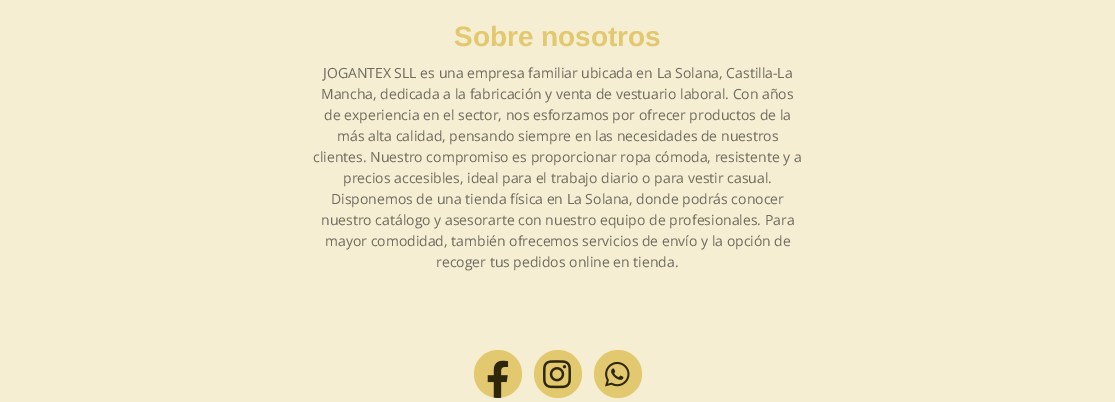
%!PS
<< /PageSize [1115 402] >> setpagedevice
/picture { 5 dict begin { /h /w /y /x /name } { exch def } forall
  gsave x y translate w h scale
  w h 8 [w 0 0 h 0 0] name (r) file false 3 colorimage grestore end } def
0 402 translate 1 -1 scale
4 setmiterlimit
0.965 0.933 0.824 setrgbcolor
0 0 1115 402 rectfill
/LiberationSans-Bold [28 0 0 -28 0 0] selectfont
0.886 0.784 0.435 setrgbcolor
454 46 moveto (Sobre nosotros) show
/OpenSans-Regular [14 0 0 -14 0 0] selectfont
0.435 0.42 0.369 setrgbcolor
323 78 moveto (JOGANTEX SLL es una empresa familiar ubicada en La Solana, Castilla-La) show
321 99 moveto (Mancha, dedicada a la fabricación y venta de vestuario laboral. Con años) show
324 120 moveto (de experiencia en el sector, nos esforzamos por ofrecer productos de la) show
337 141 moveto (más alta calidad, pensando siempre en las necesidades de nuestros) show
313 162 moveto (clientes. Nuestro compromiso es proporcionar ropa cómoda, resistente y a) show
343 183 moveto (precios accesibles, ideal para el trabajo diario o para vestir casual.) show
331 204 moveto (Disponemos de una tienda física en La Solana, donde podrás conocer) show
321 225 moveto (nuestro catálogo y asesorarte con nuestro equipo de profesionales. Para) show
325 246 moveto (mayor comodidad, también ofrecemos servicios de envío y la opción de) show
436 267 moveto (recoger tus pedidos online en tienda.) show
0.886 0.784 0.435 setrgbcolor
newpath 498 374 24 0 360 arc closepath fill
(img1.rgb) 487 360 22 38 picture
newpath 558 374 24 0 360 arc closepath fill
(img2.rgb) 543 360 28 29 picture
newpath 618 374 24 0 360 arc closepath fill
(img3.rgb) 605 361 25 26 picture
showpage
